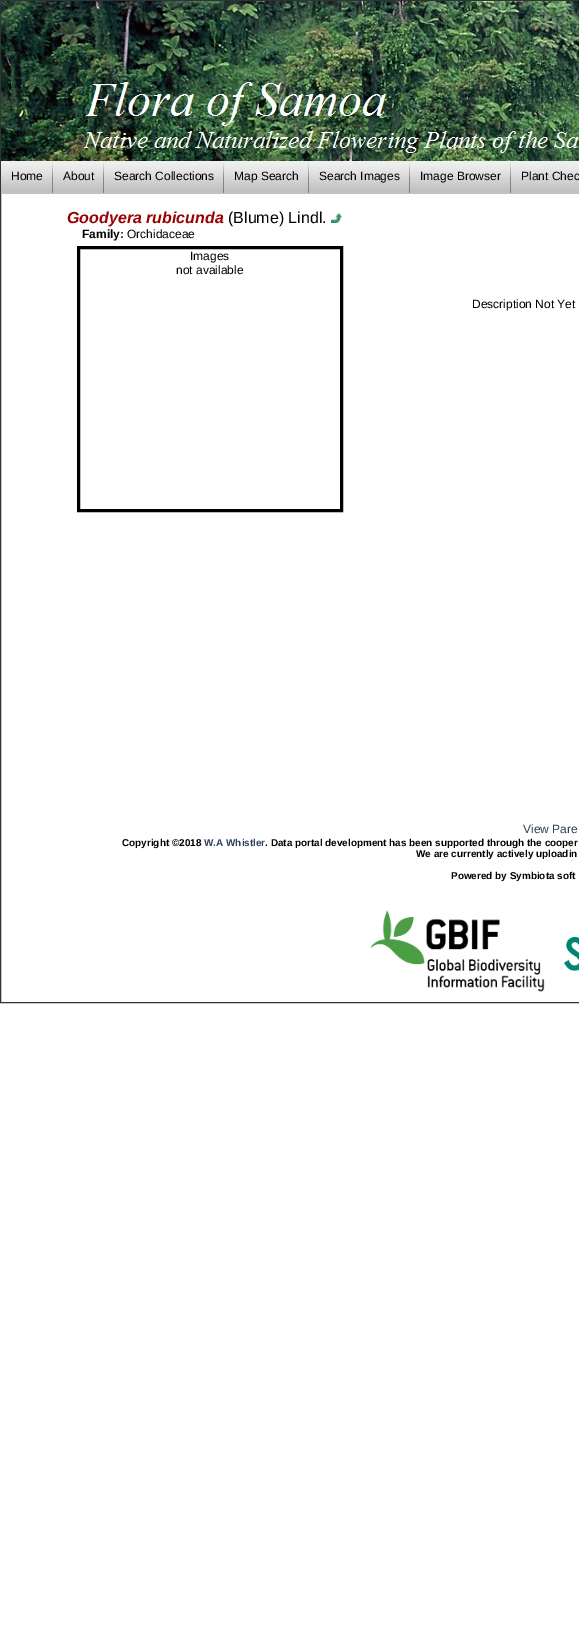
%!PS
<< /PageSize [579 1628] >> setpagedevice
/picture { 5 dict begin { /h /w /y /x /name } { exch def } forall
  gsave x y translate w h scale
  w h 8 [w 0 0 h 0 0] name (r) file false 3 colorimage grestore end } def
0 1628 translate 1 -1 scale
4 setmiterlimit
1 setgray
0 0 579 1628 rectfill
0.2 setgray
0.5 0.5 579 1002 rectstroke
(img1.rgb) 1 1 578 160 picture
0.761 setgray
1 188 578 6 rectfill
(img2.rgb) 1 161 578 27 picture
(img3.rgb) 52 162 1 31 picture
/LiberationSans-Regular [12 0 0 -12 0 0] selectfont
0 setgray
11 180 moveto (Home) show
(img3.rgb) 103 162 1 31 picture
63 180 moveto (About) show
(img3.rgb) 223 162 1 31 picture
114 180 moveto (Search Collections) show
(img3.rgb) 308 162 1 31 picture
234 180 moveto (Map Search) show
(img3.rgb) 409 162 1 31 picture
319 180 moveto (Search Images) show
(img3.rgb) 510 162 1 31 picture
420 180 moveto (Image Browser) show
521 180 moveto (Plant Chec) show
/LiberationSans-BoldItalic [16 0 0 -16 0 0] selectfont
0.6 0 0 setrgbcolor
67 223 moveto (Goodyera rubicunda) show
/LiberationSans-Regular [16 0 0 -16 0 0] selectfont
0 setgray
228 223 moveto (\(Blume\) Lindl.) show
(img4.rgb) 331 213 11 10 picture
/LiberationSans-Bold [12 0 0 -12 0 0] selectfont
82 238 moveto (Family:) show
/LiberationSans-Regular [12 0 0 -12 0 0] selectfont
127 238 moveto (Orchidaceae) show
3 setlinewidth
78.5 247.5 263 263 rectstroke
190 260 moveto (Images) show
176 274 moveto (not available) show
472 308 moveto (Description Not Yet) show
0.173 0.251 0.369 setrgbcolor
523 833 moveto (View Pare) show
/LiberationSans-Bold [9.95 0 0 -9.95 0 0] selectfont
0 setgray
122 846 moveto (Copyright ©2018) show
0.173 0.251 0.369 setrgbcolor
204 846 moveto (W.A Whistler) show
0 setgray
265 846 moveto (. Data portal development has been supported through the cooper) show
416 857 moveto (We are currently actively uploadin) show
451 879 moveto (Powered by Symbiota soft) show
(img5.rgb) 370 910 175 82 picture
(img6.rgb) 564 936 15 35 picture
showpage
